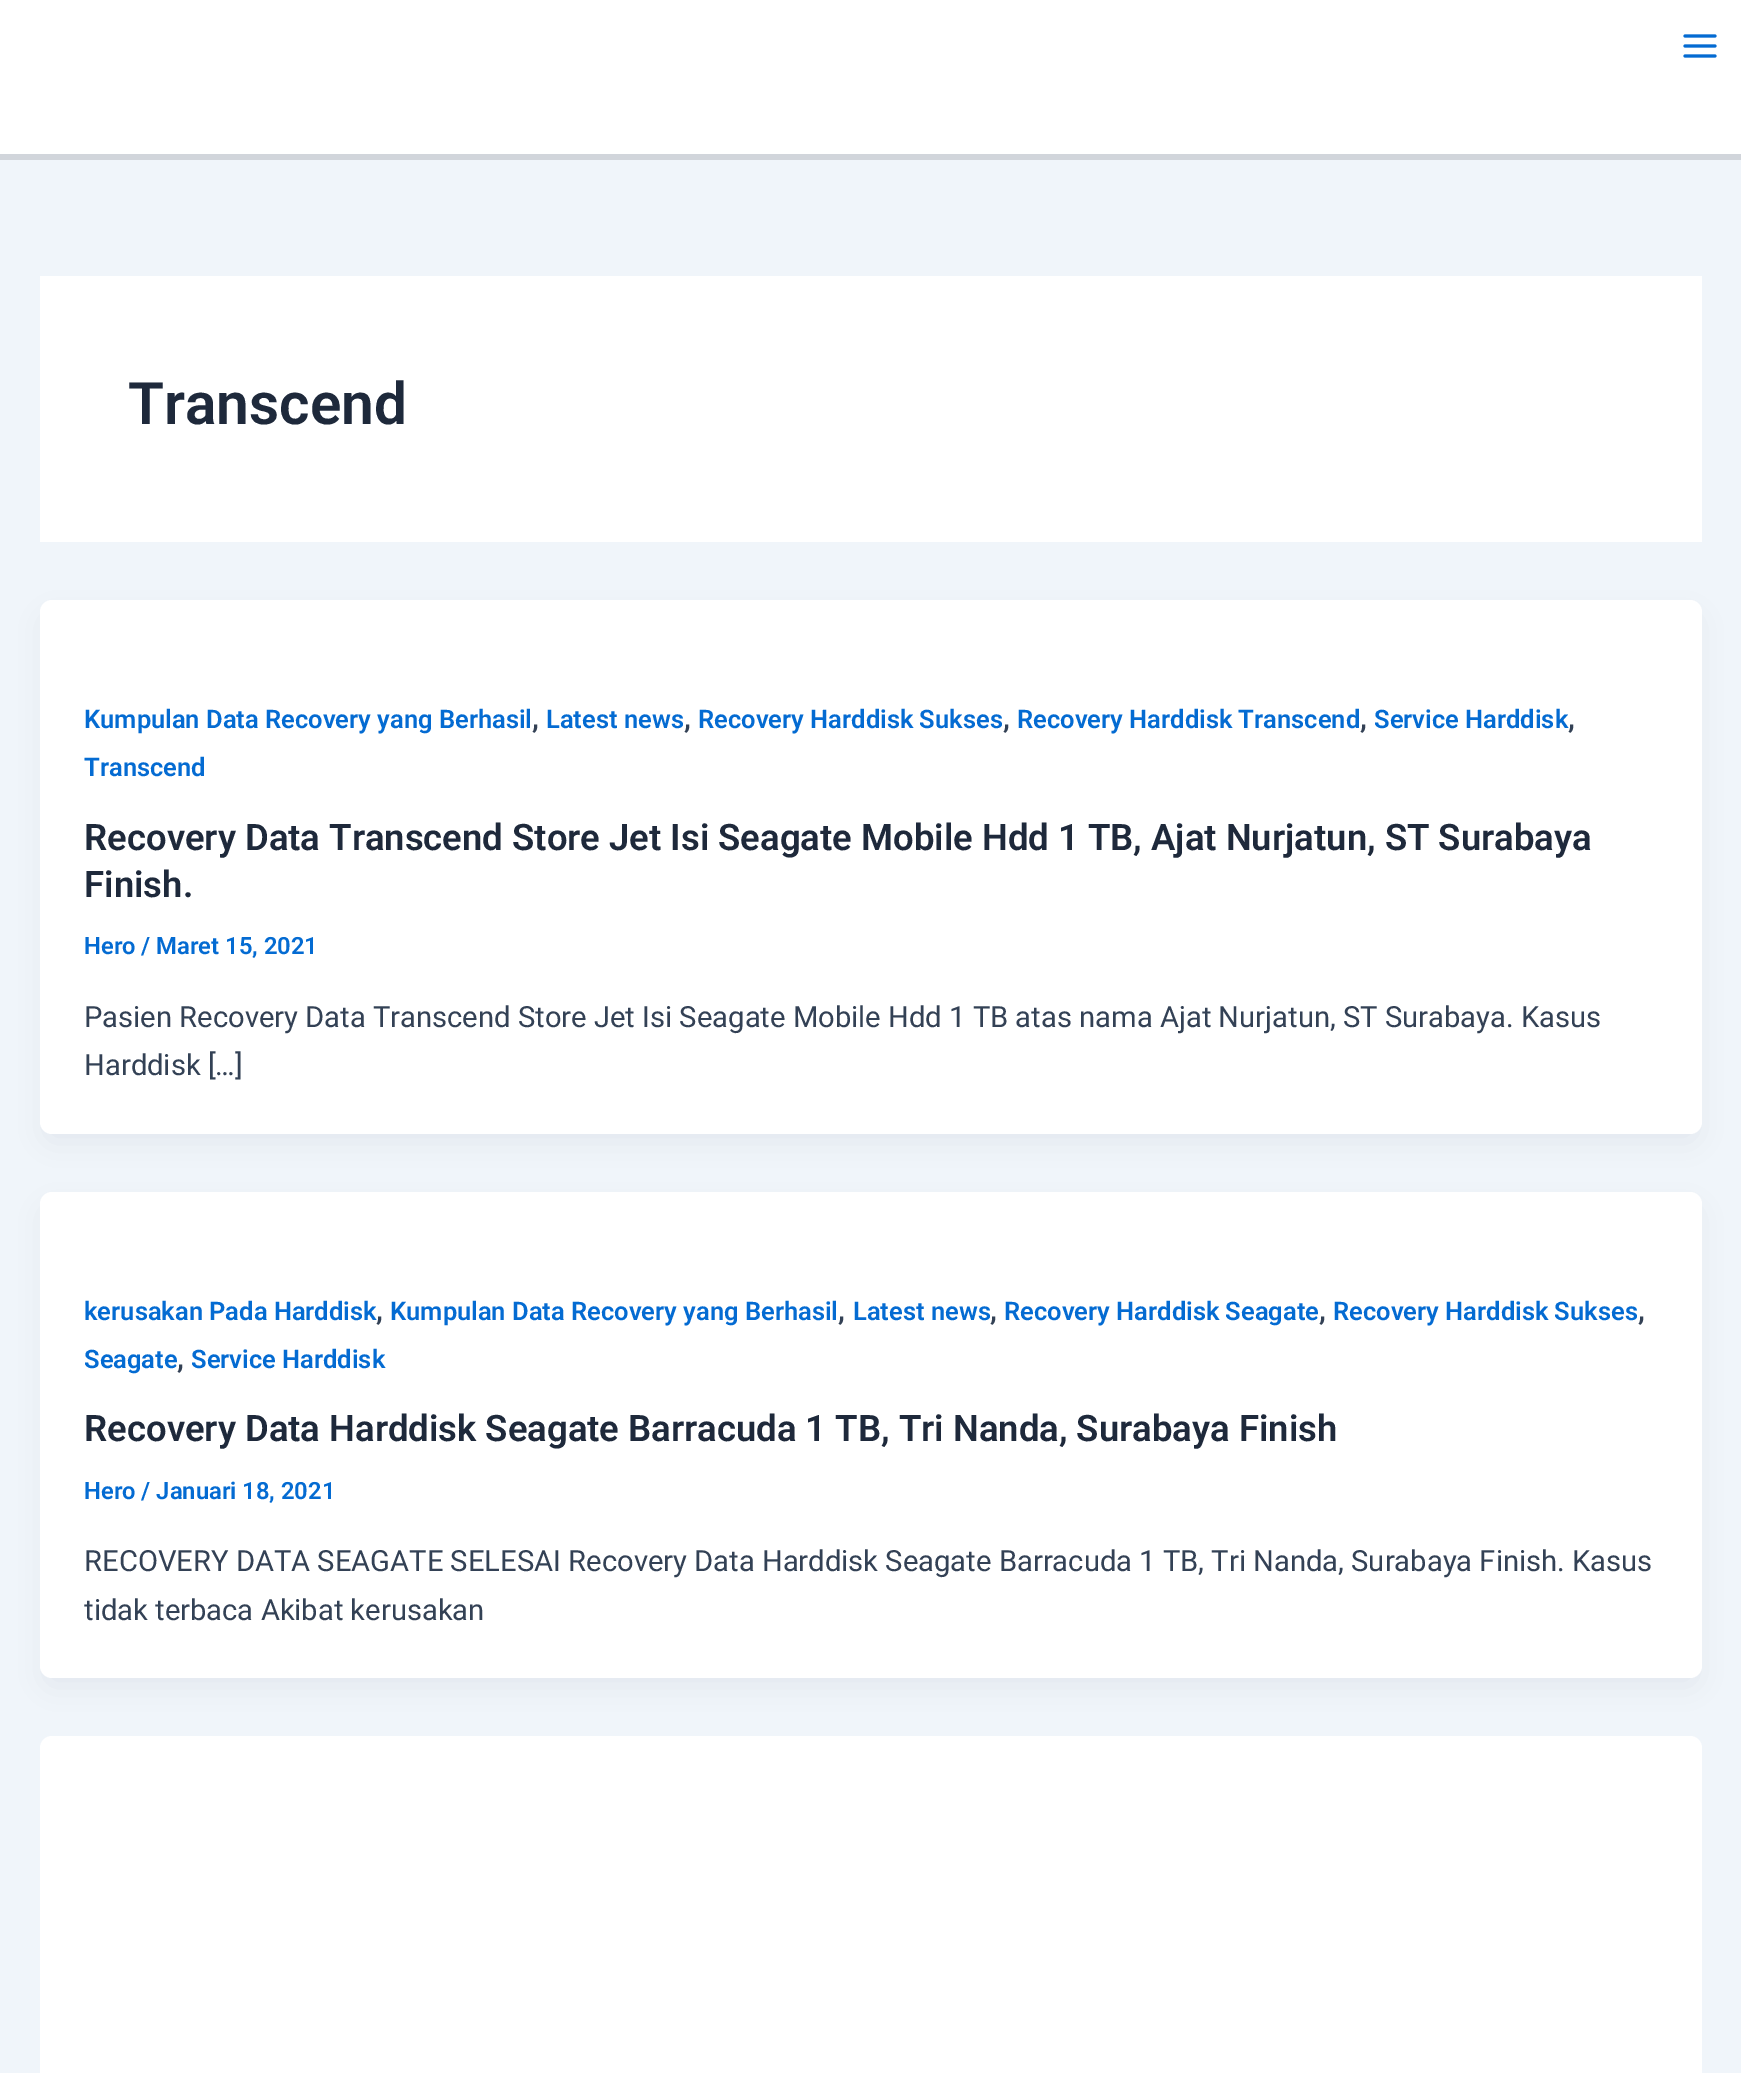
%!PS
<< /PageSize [1741 2073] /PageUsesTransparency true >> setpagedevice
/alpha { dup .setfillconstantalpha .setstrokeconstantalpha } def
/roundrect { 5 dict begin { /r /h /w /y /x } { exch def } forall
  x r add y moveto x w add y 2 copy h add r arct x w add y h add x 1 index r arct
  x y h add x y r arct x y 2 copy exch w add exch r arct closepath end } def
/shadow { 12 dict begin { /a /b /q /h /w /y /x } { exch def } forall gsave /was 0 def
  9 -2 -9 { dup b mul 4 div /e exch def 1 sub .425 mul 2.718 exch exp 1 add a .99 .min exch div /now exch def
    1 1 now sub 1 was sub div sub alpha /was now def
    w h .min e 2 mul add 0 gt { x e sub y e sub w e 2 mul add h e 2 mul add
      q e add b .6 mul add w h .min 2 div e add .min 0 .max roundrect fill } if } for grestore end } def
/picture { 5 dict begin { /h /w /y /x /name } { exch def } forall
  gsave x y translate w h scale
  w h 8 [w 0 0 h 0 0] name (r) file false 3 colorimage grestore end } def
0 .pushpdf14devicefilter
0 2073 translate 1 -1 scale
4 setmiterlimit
0.941 0.961 0.98 setrgbcolor
0 0 1741 2073 rectfill
1 setgray
0 0 1741 154 rectfill
0.82 0.835 0.859 setrgbcolor
0 154 1741 6 rectfill
(img1.rgb) 1683 34 34 24 picture
1 setgray
40 276 1662 266 rectfill
/Roboto-SemiBold [58.5 0 0 -58.5 0 0] selectfont
0.118 0.161 0.231 setrgbcolor
128 424 moveto (Transcend) show
0.063 0.094 0.157 setrgbcolor
44 616 1654 526 8 15 0.05 shadow
1 setgray
40 600 1662 534 12 roundrect fill
/Roboto-SemiBold [25.5 0 0 -25.5 0 0] selectfont
0.016 0.42 0.824 setrgbcolor
84 728 moveto (Kumpulan Data Recovery yang Berhasil) show
/Roboto-SemiBold [29.18 0 0 -29.18 0 0] selectfont
0.2 0.255 0.333 setrgbcolor
532 728 moveto (,) show
/Roboto-SemiBold [25.5 0 0 -25.5 0 0] selectfont
0.016 0.42 0.824 setrgbcolor
546 728 moveto (Latest news) show
/Roboto-SemiBold [29.18 0 0 -29.18 0 0] selectfont
0.2 0.255 0.333 setrgbcolor
684 728 moveto (,) show
/Roboto-SemiBold [25.5 0 0 -25.5 0 0] selectfont
0.016 0.42 0.824 setrgbcolor
698 728 moveto (Recovery Harddisk Sukses) show
/Roboto-SemiBold [29.18 0 0 -29.18 0 0] selectfont
0.2 0.255 0.333 setrgbcolor
1003 728 moveto (,) show
/Roboto-SemiBold [25.5 0 0 -25.5 0 0] selectfont
0.016 0.42 0.824 setrgbcolor
1017 728 moveto (Recovery Harddisk Transcend) show
/Roboto-SemiBold [29.18 0 0 -29.18 0 0] selectfont
0.2 0.255 0.333 setrgbcolor
1360 728 moveto (,) show
/Roboto-SemiBold [25.5 0 0 -25.5 0 0] selectfont
0.016 0.42 0.824 setrgbcolor
1374 728 moveto (Service Harddisk) show
/Roboto-SemiBold [29.18 0 0 -29.18 0 0] selectfont
0.2 0.255 0.333 setrgbcolor
1568 728 moveto (,) show
/Roboto-SemiBold [25.5 0 0 -25.5 0 0] selectfont
0.016 0.42 0.824 setrgbcolor
84 776 moveto (Transcend) show
/Roboto-SemiBold [36.5 0 0 -36.5 0 0] selectfont
0.118 0.161 0.231 setrgbcolor
84 850 moveto (Recovery Data Transcend Store Jet Isi Seagate Mobile Hdd 1 TB, Ajat Nurjatun, ST Surabaya) show
84 897 moveto (Finish.) show
/Roboto-SemiBold [23.75 0 0 -23.75 0 0] selectfont
0.016 0.42 0.824 setrgbcolor
84 954 moveto (Hero / Maret 15, 2021) show
/Roboto-Regular [29.18 0 0 -29.18 0 0] selectfont
0.2 0.255 0.333 setrgbcolor
84 1027 moveto (Pasien Recovery Data Transcend Store Jet Isi Seagate Mobile Hdd 1 TB atas nama Ajat Nurjatun, ST Surabaya. Kasus) show
84 1075 moveto (Harddisk […]) show
0.063 0.094 0.157 setrgbcolor
44 1208 1654 478 8 15 0.05 shadow
1 setgray
40 1192 1662 486 12 roundrect fill
/Roboto-SemiBold [25.5 0 0 -25.5 0 0] selectfont
0.016 0.42 0.824 setrgbcolor
84 1320 moveto (kerusakan Pada Harddisk) show
/Roboto-SemiBold [29.18 0 0 -29.18 0 0] selectfont
0.2 0.255 0.333 setrgbcolor
376 1320 moveto (,) show
/Roboto-SemiBold [25.5 0 0 -25.5 0 0] selectfont
0.016 0.42 0.824 setrgbcolor
390 1320 moveto (Kumpulan Data Recovery yang Berhasil) show
/Roboto-SemiBold [29.18 0 0 -29.18 0 0] selectfont
0.2 0.255 0.333 setrgbcolor
838 1320 moveto (,) show
/Roboto-SemiBold [25.5 0 0 -25.5 0 0] selectfont
0.016 0.42 0.824 setrgbcolor
853 1320 moveto (Latest news) show
/Roboto-SemiBold [29.18 0 0 -29.18 0 0] selectfont
0.2 0.255 0.333 setrgbcolor
990 1320 moveto (,) show
/Roboto-SemiBold [25.5 0 0 -25.5 0 0] selectfont
0.016 0.42 0.824 setrgbcolor
1004 1320 moveto (Recovery Harddisk Seagate) show
/Roboto-SemiBold [29.18 0 0 -29.18 0 0] selectfont
0.2 0.255 0.333 setrgbcolor
1319 1320 moveto (,) show
/Roboto-SemiBold [25.5 0 0 -25.5 0 0] selectfont
0.016 0.42 0.824 setrgbcolor
1333 1320 moveto (Recovery Harddisk Sukses) show
/Roboto-SemiBold [29.18 0 0 -29.18 0 0] selectfont
0.2 0.255 0.333 setrgbcolor
1638 1320 moveto (,) show
/Roboto-SemiBold [25.5 0 0 -25.5 0 0] selectfont
0.016 0.42 0.824 setrgbcolor
84 1368 moveto (Seagate) show
/Roboto-SemiBold [29.18 0 0 -29.18 0 0] selectfont
0.2 0.255 0.333 setrgbcolor
177 1368 moveto (,) show
/Roboto-SemiBold [25.5 0 0 -25.5 0 0] selectfont
0.016 0.42 0.824 setrgbcolor
191 1368 moveto (Service Harddisk) show
/Roboto-SemiBold [36.5 0 0 -36.5 0 0] selectfont
0.118 0.161 0.231 setrgbcolor
84 1441 moveto (Recovery Data Harddisk Seagate Barracuda 1 TB, Tri Nanda, Surabaya Finish) show
/Roboto-SemiBold [23.75 0 0 -23.75 0 0] selectfont
0.016 0.42 0.824 setrgbcolor
84 1499 moveto (Hero / Januari 18, 2021) show
/Roboto-Regular [29.18 0 0 -29.18 0 0] selectfont
0.2 0.255 0.333 setrgbcolor
84 1571 moveto (RECOVERY DATA SEAGATE SELESAI Recovery Data Harddisk Seagate Barracuda 1 TB, Tri Nanda, Surabaya Finish. Kasus) show
84 1620 moveto (tidak terbaca Akibat kerusakan) show
1 setgray
40 1736 1662 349 12 roundrect fill
.poppdf14devicefilter showpage
